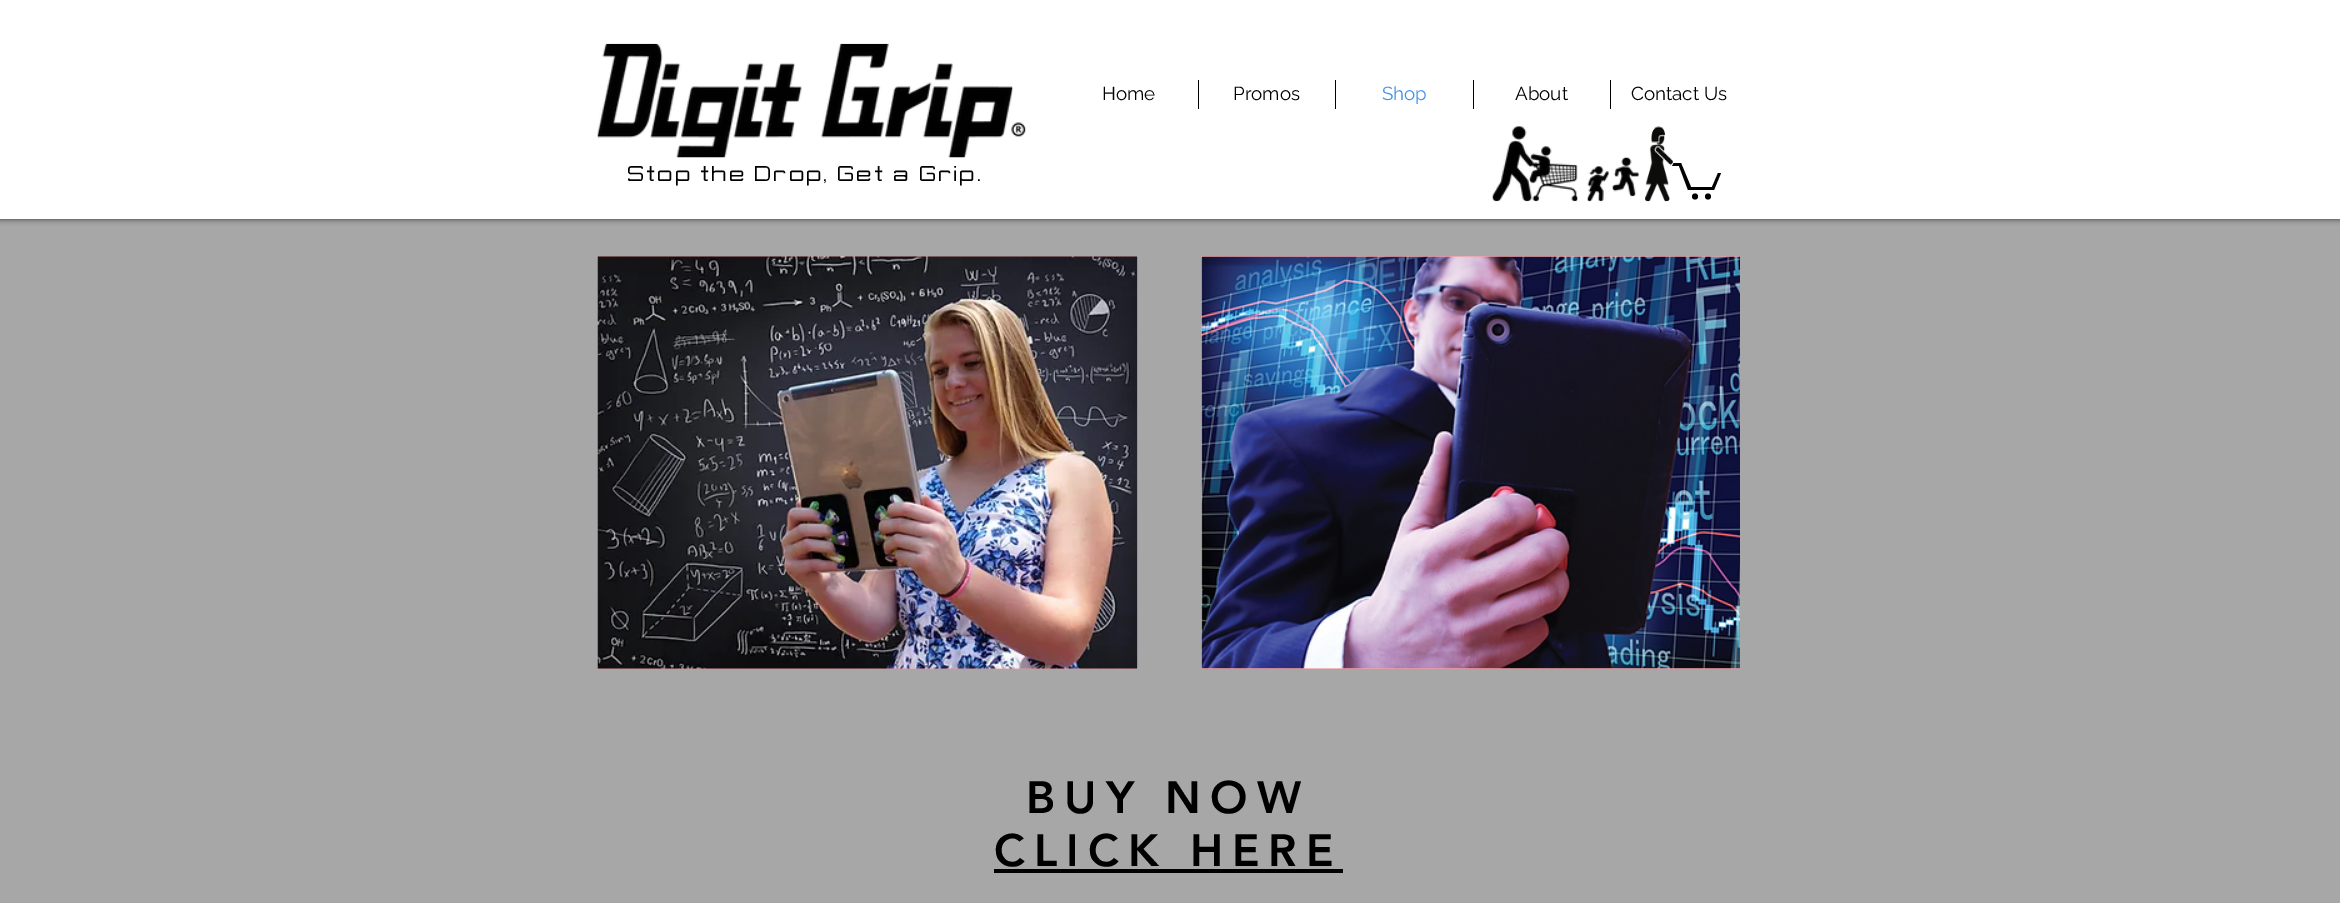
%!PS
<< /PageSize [2340 903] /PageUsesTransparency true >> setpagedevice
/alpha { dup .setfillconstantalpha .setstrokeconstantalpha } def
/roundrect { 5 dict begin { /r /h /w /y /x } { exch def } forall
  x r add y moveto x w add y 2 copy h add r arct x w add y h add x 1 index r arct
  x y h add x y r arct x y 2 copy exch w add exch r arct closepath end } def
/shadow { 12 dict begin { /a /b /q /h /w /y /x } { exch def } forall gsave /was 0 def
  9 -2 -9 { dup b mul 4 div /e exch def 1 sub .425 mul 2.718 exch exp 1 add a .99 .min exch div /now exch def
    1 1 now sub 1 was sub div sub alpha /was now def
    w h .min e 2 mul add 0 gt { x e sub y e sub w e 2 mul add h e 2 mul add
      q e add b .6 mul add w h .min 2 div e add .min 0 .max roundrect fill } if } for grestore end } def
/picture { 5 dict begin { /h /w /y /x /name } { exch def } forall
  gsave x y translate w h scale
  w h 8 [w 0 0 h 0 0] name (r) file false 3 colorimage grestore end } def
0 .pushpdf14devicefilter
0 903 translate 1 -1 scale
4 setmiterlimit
0.655 setgray
0 0 2340 903 rectfill
0 setgray
0 0 2340 219 0 3 0.7 shadow
1 setgray
0 0 2340 219 rectfill
(img1.rgb) 597 43 416 115 picture
/Raleway-Regular [18.75 0 0 -18.75 0 0] selectfont
0 setgray
1102 100 moveto (Home) show
1198 80 1 29 rectfill
1233 100 moveto (Promos) show
1335 80 1 29 rectfill
0.263 0.565 0.91 setrgbcolor
1382 100 moveto (Shop) show
0 setgray
1473 80 1 29 rectfill
1515 100 moveto (About) show
1610 80 1 29 rectfill
1631 100 moveto (Contact Us) show
/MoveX-Regular [21.25 0 0 -21.25 0 0] selectfont
627 181 moveto 2.1 0 (Stop the Drop, Get a Grip.) ashow
(img2.rgb) 1011 122 16 15 picture
(img3.rgb) 1492 126 86 76 picture
(img4.rgb) 1587 166 22 36 picture
(img5.rgb) 1612 157 27 40 picture
newpath 1721 173 moveto 1714 190 lineto 1688 190 lineto 1679 166 lineto 1672 166 lineto 1673 163 lineto 1681 163 lineto 1691 187 lineto 1712 187 lineto 1718 173 lineto fill
(img6.rgb) 1645 126 29 76 picture
newpath 1708 196.5 3 0 360 arc closepath fill
newpath 1695 196.5 3 0 360 arc closepath fill
0.929 0.647 0.651 setrgbcolor
598 256 540 413 rectfill
(img7.rgb) 597 256 541 413 picture
1201 256 539 413 rectfill
(img8.rgb) 1201 256 539 413 picture
/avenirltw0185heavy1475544-Black [45 0 0 -45 0 0] selectfont
0 setgray
1026 813 moveto 9 0 (BUY NOW) ashow
994 866 moveto 9 0 (CLICK HERE) ashow
994 869 349 4 rectfill
.poppdf14devicefilter showpage
